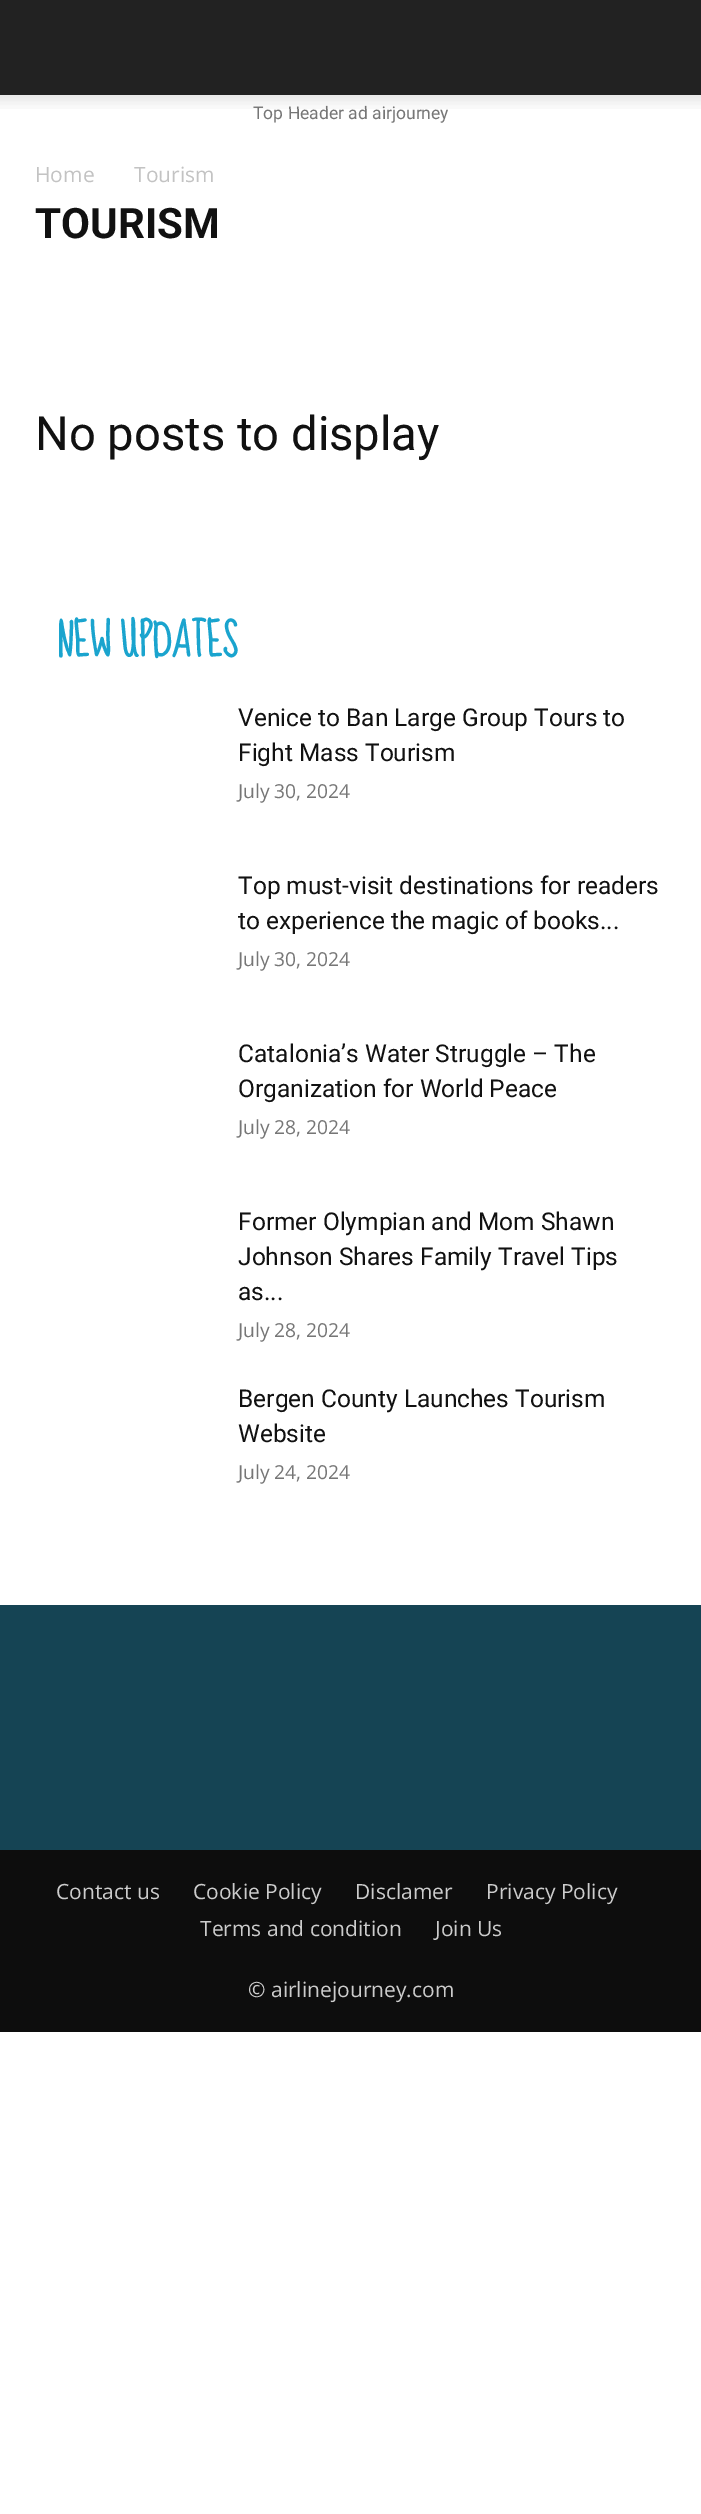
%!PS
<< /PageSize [701 2514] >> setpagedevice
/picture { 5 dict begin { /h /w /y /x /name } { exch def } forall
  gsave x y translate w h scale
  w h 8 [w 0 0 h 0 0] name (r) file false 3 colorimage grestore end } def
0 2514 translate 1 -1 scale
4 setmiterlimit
1 setgray
0 0 701 2514 rectfill
0.133 setgray
0 0 701 95 rectfill
/Roboto-Regular [17.5 0 0 -17.5 0 0] selectfont
0.463 setgray
253 119 moveto (Top Header ad airjourney) show
(img1.rgb) 0 95 701 14 picture
/OpenSans-Regular [21 0 0 -21 0 0] selectfont
0.765 setgray
35 182 moveto (Home) show
134 182 moveto (Tourism) show
/Roboto-Bold [42 0 0 -42 0 0] selectfont
0.067 setgray
35 238 moveto (TOURISM) show
/Roboto-Regular [47.25 0 0 -47.25 0 0] selectfont
35 450 moveto (No posts to display) show
/SueEllenFrancisco-Bold [40.25 0 0 -40.25 0 0] selectfont
0.102 0.643 0.808 setrgbcolor
56 656 moveto (NEW UPDATES) show
/Roboto-Regular [24.5 0 0 -24.5 0 0] selectfont
0.067 setgray
238 726 moveto (Venice to Ban Large Group Tours to) show
238 761 moveto (Fight Mass Tourism) show
/OpenSans-Regular [19.25 0 0 -19.25 0 0] selectfont
0.463 setgray
238 798 moveto (July 30, 2024) show
/Roboto-Regular [24.5 0 0 -24.5 0 0] selectfont
0.067 setgray
238 894 moveto (Top must-visit destinations for readers) show
238 929 moveto (to experience the magic of books...) show
/OpenSans-Regular [19.25 0 0 -19.25 0 0] selectfont
0.463 setgray
238 966 moveto (July 30, 2024) show
/Roboto-Regular [24.5 0 0 -24.5 0 0] selectfont
0.067 setgray
238 1062 moveto (Catalonia’s Water Struggle – The) show
238 1097 moveto (Organization for World Peace) show
/OpenSans-Regular [19.25 0 0 -19.25 0 0] selectfont
0.463 setgray
238 1134 moveto (July 28, 2024) show
/Roboto-Regular [24.5 0 0 -24.5 0 0] selectfont
0.067 setgray
238 1230 moveto (Former Olympian and Mom Shawn) show
238 1265 moveto (Johnson Shares Family Travel Tips) show
238 1300 moveto (as...) show
/OpenSans-Regular [19.25 0 0 -19.25 0 0] selectfont
0.463 setgray
238 1337 moveto (July 28, 2024) show
/Roboto-Regular [24.5 0 0 -24.5 0 0] selectfont
0.067 setgray
238 1407 moveto (Bergen County Launches Tourism) show
238 1442 moveto (Website) show
/OpenSans-Regular [19.25 0 0 -19.25 0 0] selectfont
0.463 setgray
238 1479 moveto (July 24, 2024) show
0.082 0.267 0.329 setrgbcolor
0 1605 701 245 rectfill
0.051 setgray
0 1850 701 182 rectfill
/OpenSans-Regular [21 0 0 -21 0 0] selectfont
0.8 setgray
56 1899 moveto (Contact us) show
193 1899 moveto (Cookie Policy) show
355 1899 moveto (Disclamer) show
486 1899 moveto (Privacy Policy) show
200 1936 moveto (Terms and condition) show
435 1936 moveto (Join Us) show
248 1997 moveto (© airlinejourney.com) show
showpage
